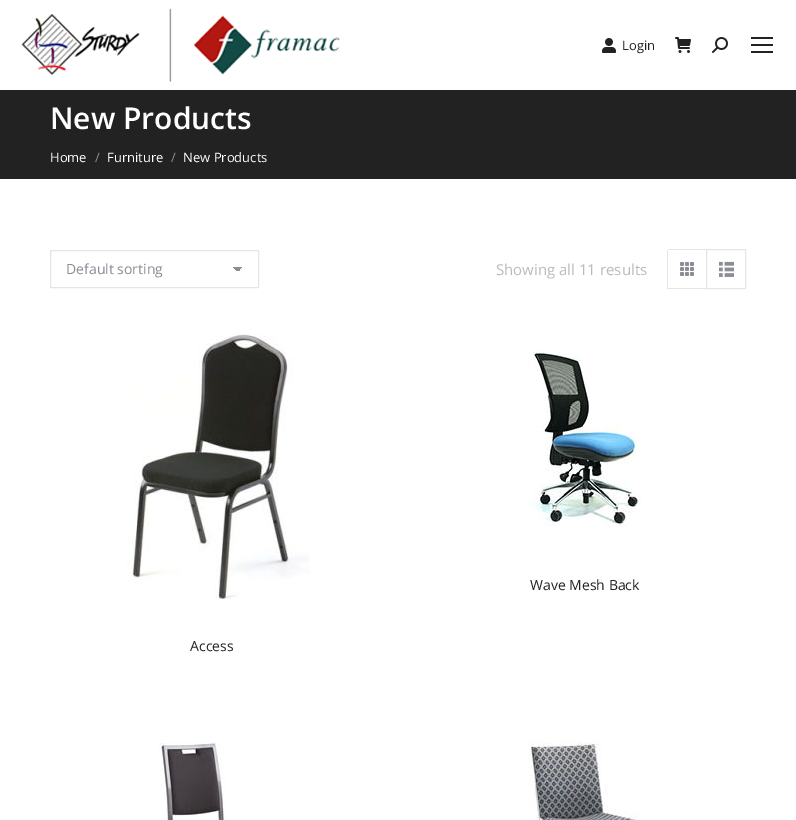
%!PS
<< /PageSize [796 820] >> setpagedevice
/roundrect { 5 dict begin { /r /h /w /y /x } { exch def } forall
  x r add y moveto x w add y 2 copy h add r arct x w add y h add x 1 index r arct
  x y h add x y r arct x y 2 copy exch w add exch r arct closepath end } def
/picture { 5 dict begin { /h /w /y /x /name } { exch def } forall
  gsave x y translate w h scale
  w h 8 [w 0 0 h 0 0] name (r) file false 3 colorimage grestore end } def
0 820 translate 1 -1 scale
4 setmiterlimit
1 setgray
0 0 796 820 rectfill
(img1.rgb) 21 8 319 74 picture
(img2.rgb) 602 38 14 15 picture
/OpenSans-Regular [13 0 0 -13 0 0] selectfont
0.133 setgray
622 50 moveto (Login) show
(img3.rgb) 675 37 16 16 picture
(img4.rgb) 712 37 16 16 picture
751 37 22 2 rectfill
751 44 22 2 rectfill
751 51 22 2 rectfill
0 90 796 89 rectfill
/OpenSans-SemiBold [30 0 0 -30 0 0] selectfont
1 setgray
50 129 moveto (New Products) show
/OpenSans-Regular [13 0 0 -13 0 0] selectfont
50 162 moveto (Home) show
0.569 setgray
95 162 moveto (/) show
1 setgray
107 162 moveto (Furniture) show
0.569 setgray
171 162 moveto (/) show
1 setgray
183 162 moveto (New Products) show
gsave newpath 238 267 moveto 243 267 lineto 243 271 lineto 238 271 lineto closepath clip newpath
<< /ShadingType 2 /ColorSpace /DeviceRGB /Coords [238 267 243 272] /Extend [true true] /Function << /FunctionType 3 /Domain [0 1] /Functions [<< /FunctionType 2 /Domain [0 1] /C0 [0.545 0.553 0.58] /C1 [0.545 0.553 0.58] /N 1 >> << /FunctionType 2 /Domain [0 1] /C0 [0.992 0.992 0.992] /C1 [0.992 0.992 0.992] /N 1 >>] /Bounds [0.5] /Encode [0 1 0 1] >> >> shfill grestore
gsave newpath 233 267 moveto 238 267 lineto 238 271 lineto 233 271 lineto closepath clip newpath
<< /ShadingType 2 /ColorSpace /DeviceRGB /Coords [233 272 238 267] /Extend [true true] /Function << /FunctionType 3 /Domain [0 1] /Functions [<< /FunctionType 2 /Domain [0 1] /C0 [0.992 0.992 0.992] /C1 [0.992 0.992 0.992] /N 1 >> << /FunctionType 2 /Domain [0 1] /C0 [0.545 0.553 0.58] /C1 [0.545 0.553 0.58] /N 1 >>] /Bounds [0.5] /Encode [0 1 0 1] >> >> shfill grestore
0.898 setgray
50.5 250.5 208 37 0.5 roundrect stroke
/OpenSans-Regular [14 0 0 -14 0 0] selectfont
0.545 0.553 0.58 setrgbcolor
66 274 moveto (Default sorting) show
/OpenSans-Regular [15 0 0 -15 0 0] selectfont
0.733 setgray
496 275 moveto (Showing all 11 results) show
0.898 setgray
668 249 38 1 rectfill
668 288 38 1 rectfill
667 250 1 39 rectfill
(img5.rgb) 680 262 14 14 picture
newpath 706.5 249.5 moveto 745 249.5 lineto 745.5 249.5 745.5 249.5 745.5 250 curveto 745.5 288 lineto 745.5 288.5 745.5 288.5 745 288.5 curveto 706.5 288.5 lineto closepath stroke
(img6.rgb) 719 261 15 16 picture
(img7.rgb) 529 351 112 176 picture
/OpenSans-Regular [14 0 0 -14 0 0] selectfont
0.133 setgray
530 590 moveto (Wave Mesh Back) show
(img8.rgb) 126 334 184 265 picture
190 651 moveto (Access) show
(img9.rgb) 159 740 69 80 picture
(img10.rgb) 529 740 110 80 picture
showpage
